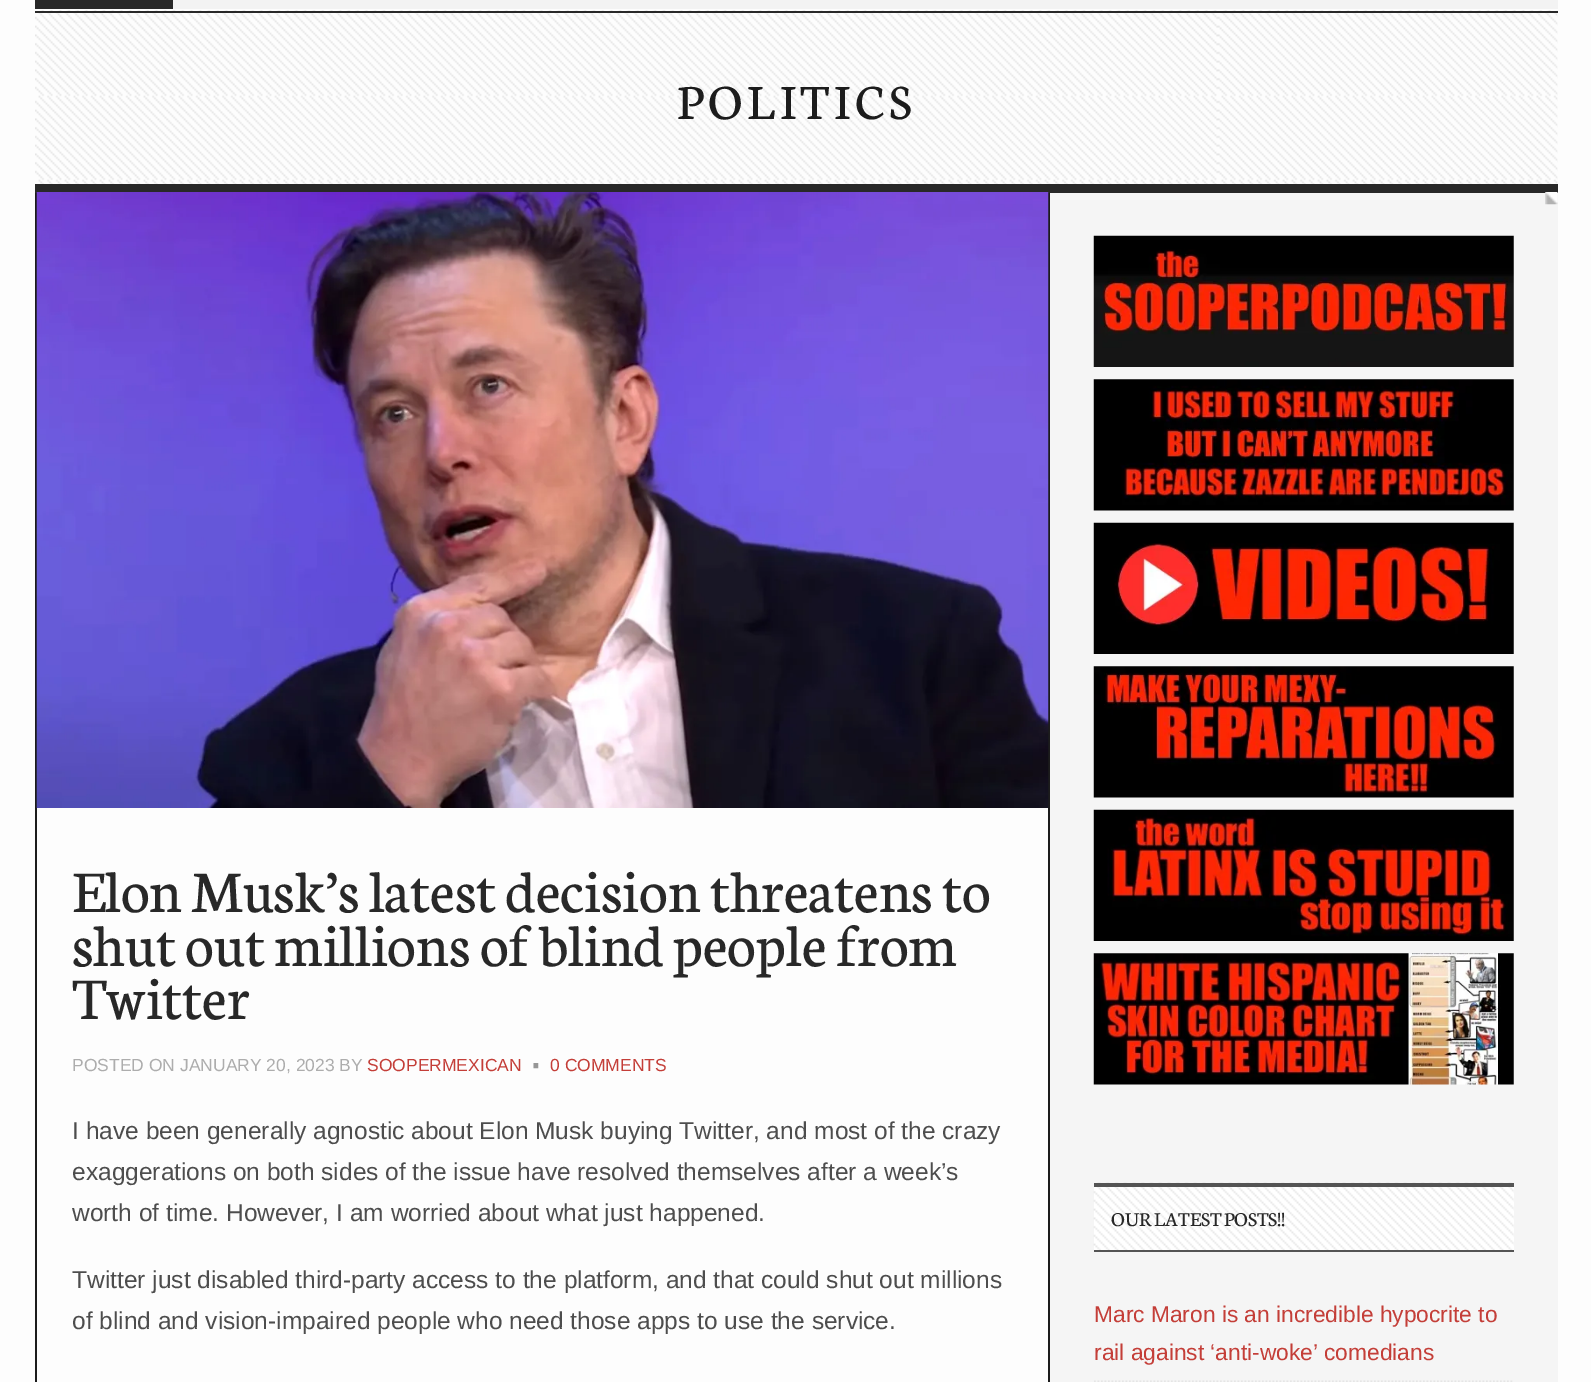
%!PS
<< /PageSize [1591 1382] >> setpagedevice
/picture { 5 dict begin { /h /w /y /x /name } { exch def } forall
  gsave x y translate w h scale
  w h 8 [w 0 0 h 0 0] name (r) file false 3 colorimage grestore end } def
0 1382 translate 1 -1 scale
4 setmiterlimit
0.992 setgray
0 0 1591 1382 rectfill
0.953 setgray
173 0 1385 9 rectfill
0.157 setgray
35 0 138 9 rectfill
(img1.rgb) 35 10 1523 174 picture
35 11 1523 2 rectfill
35 184 1523 9 rectfill
/Neuton-Regular [52.5 0 0 -52.5 0 0] selectfont
0.11 setgray
677 119 moveto 5.25 0 (POLITICS) ashow
1048 193 2 1189 rectfill
35 193 2 1189 rectfill
(img2.rgb) 36 192 1013 616 picture
/Neuton-Regular [63 0 0 -63 0 0] selectfont
0.157 setgray
72 912 moveto (Elon Musk’s latest decision threatens to) show
72 966 moveto (shut out millions of blind people from) show
72 1019 moveto (Twitter) show
/LiberationSans-Regular [17.5 0 0 -17.5 0 0] selectfont
0.678 setgray
72 1071 moveto (POSTED ON JANUARY 20, 2023 BY) show
0.769 0.243 0.22 setrgbcolor
367 1071 moveto (SOOPERMEXICAN) show
/LiberationSans-Regular [49 0 0 -49 0 0] selectfont
0.592 setgray
529 1079 moveto (∙) show
/LiberationSans-Regular [17.5 0 0 -17.5 0 0] selectfont
0.769 0.243 0.22 setrgbcolor
550 1071 moveto (0 COMMENTS) show
/LiberationSans-Regular [24.5 0 0 -24.5 0 0] selectfont
0.302 setgray
72 1139 moveto (I have been generally agnostic about Elon Musk buying Twitter, and most of the crazy) show
72 1180 moveto (exaggerations on both sides of the issue have resolved themselves after a week’s) show
72 1221 moveto (worth of time. However, I am worried about what just happened.) show
72 1288 moveto (Twitter just disabled third-party access to the platform, and that could shut out millions) show
72 1329 moveto (of blind and vision-impaired people who need those apps to use the service.) show
0.961 setgray
1050 193 508 1189 rectfill
(img3.rgb) 1545 192 13 13 picture
(img4.rgb) 1093 235 421 132 picture
(img5.rgb) 1093 379 421 132 picture
(img6.rgb) 1093 522 421 132 picture
(img7.rgb) 1093 666 421 132 picture
(img8.rgb) 1093 809 421 132 picture
(img9.rgb) 1093 953 421 132 picture
1 setgray
1094 1187 420 63 rectfill
(img10.rgb) 1093 1182 421 68 picture
0.329 setgray
1094 1183 420 4 rectfill
1094 1250 420 2 rectfill
/Neuton-Regular [21 0 0 -21 0 0] selectfont
0.157 setgray
1111 1226 moveto (OUR LATEST POSTS!!) show
0.898 setgray
1.8 setlinewidth
[1.75 1.75] 0 setdash
newpath 1094 1381.5 moveto 1514 1381.5 lineto stroke
/LiberationSans-Regular [22.75 0 0 -22.75 0 0] selectfont
0.769 0.243 0.22 setrgbcolor
1094 1322 moveto (Marc Maron is an incredible hypocrite to) show
1094 1360 moveto (rail against ‘anti-woke’ comedians) show
showpage
